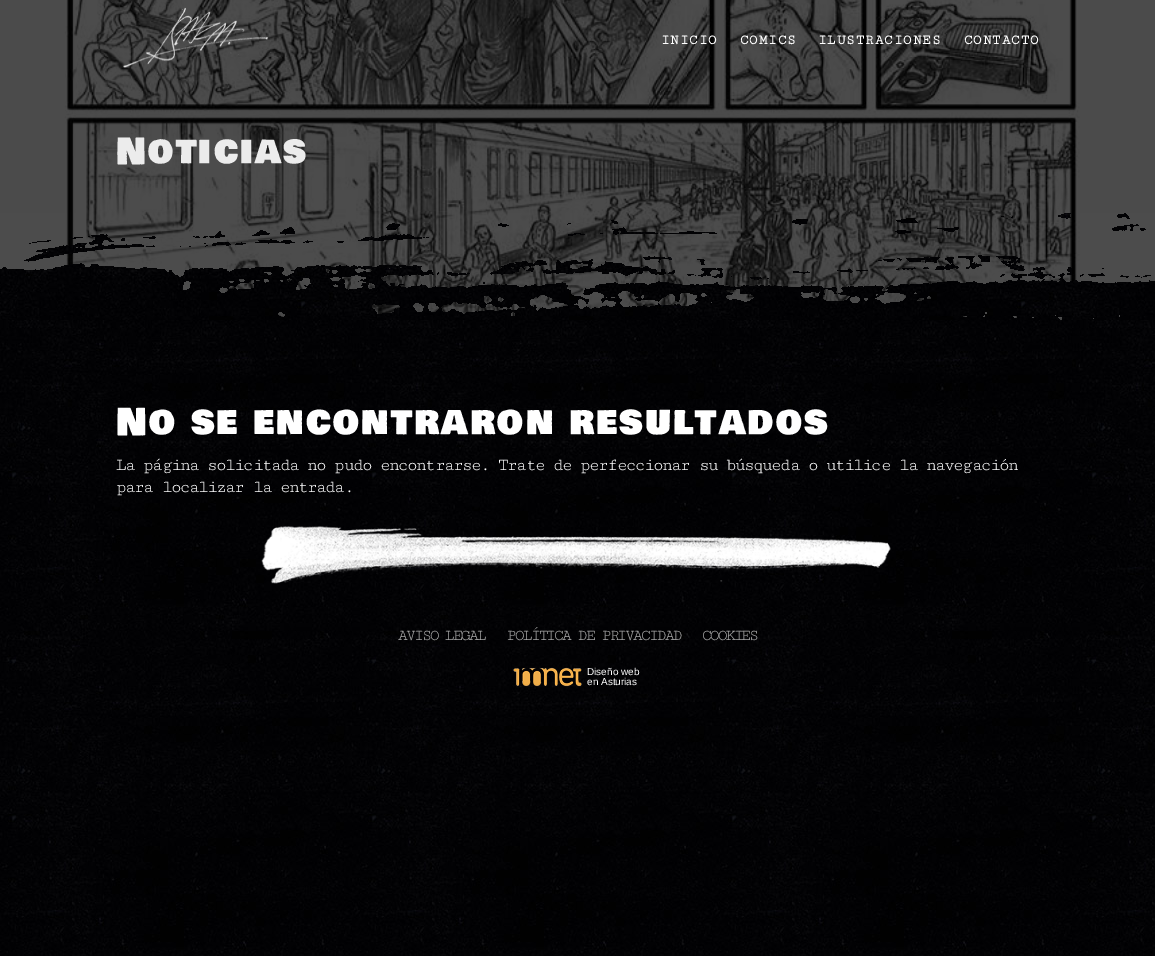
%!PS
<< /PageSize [1155 956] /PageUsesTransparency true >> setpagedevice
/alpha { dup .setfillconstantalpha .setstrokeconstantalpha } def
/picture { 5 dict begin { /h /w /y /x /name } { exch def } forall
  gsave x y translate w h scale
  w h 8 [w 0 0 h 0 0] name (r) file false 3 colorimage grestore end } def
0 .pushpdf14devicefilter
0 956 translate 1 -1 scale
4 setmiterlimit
1 setgray
0 0 1155 956 rectfill
(img1.rgb) 0 318 1155 638 picture
(img2.rgb) 0 0 1155 320 picture
0.7 alpha
0 setgray
0 0 1155 320 rectfill
1 alpha
(img3.rgb) 123 7 145 67 picture
/CutiveMono-Bold [14 0 0 -14 0 0] selectfont
1 setgray
661 44 moveto 1 0 (INICIO) ashow
740 44 moveto 1 0 (COMICS) ashow
818 44 moveto 1 0 (ILUSTRACIONES) ashow
964 44 moveto 1 0 (CONTACTO) ashow
/BowlbyOneSC-Regular [36 0 0 -36 0 0] selectfont
0.925 setgray
116 164 moveto 2 0 (Noticias) ashow
(img4.rgb) 0 213 1155 107 picture
/BowlbyOneSC-Regular [37 0 0 -37 0 0] selectfont
1 setgray
116 435 moveto 2 0 (No se encontraron resultados) ashow
/CutiveMono-Regular [18 0 0 -18 0 0] selectfont
116 470 moveto -1.8 0 (La página solicitada no pudo encontrarse. Trate de perfeccionar su búsqueda o utilice la navegación) ashow
116 492 moveto -1.8 0 (para localizar la entrada.) ashow
(img5.rgb) 261 526 630 58 picture
/CutiveMono-Regular [16 0 0 -16 0 0] selectfont
0.667 setgray
398 640 moveto -1.8 0 (AVISO LEGAL) ashow
507 640 moveto -1.8 0 (POLÍTICA DE PRIVACIDAD) ashow
702 640 moveto -1.8 0 (COOKIES) ashow
(img6.rgb) 513 667 69 20 picture
/LiberationSans-Regular [10 0 0 -10 0 0] selectfont
1 setgray
587 675 moveto (Diseño web) show
587 685 moveto (en Asturias) show
.poppdf14devicefilter showpage
